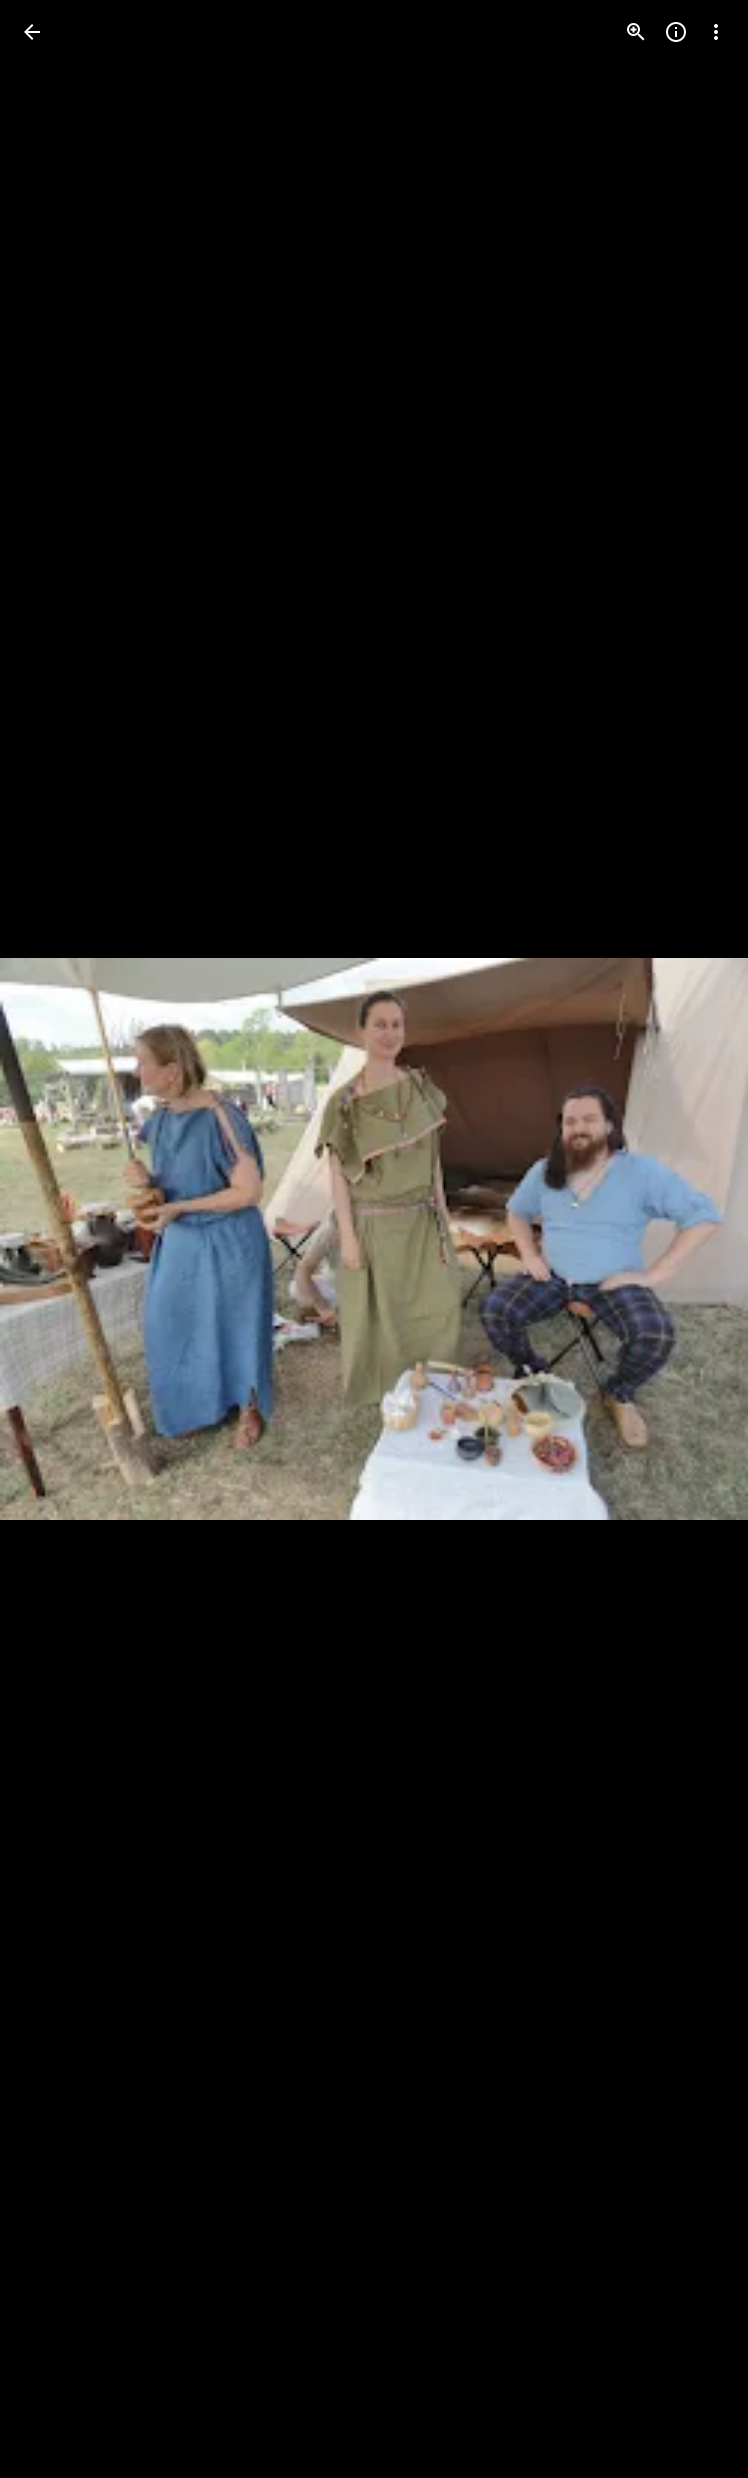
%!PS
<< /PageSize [748 2478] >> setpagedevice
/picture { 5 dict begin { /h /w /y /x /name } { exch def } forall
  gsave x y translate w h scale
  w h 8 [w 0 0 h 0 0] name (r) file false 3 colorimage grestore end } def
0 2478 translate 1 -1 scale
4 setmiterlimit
0 setgray
0 0 748 2478 rectfill
(img1.rgb) 24 24 16 16 picture
(img2.rgb) 627 23 18 18 picture
(img3.rgb) 666 22 20 20 picture
(img4.rgb) 714 24 4 16 picture
(img5.rgb) 0 958 748 562 picture
showpage
